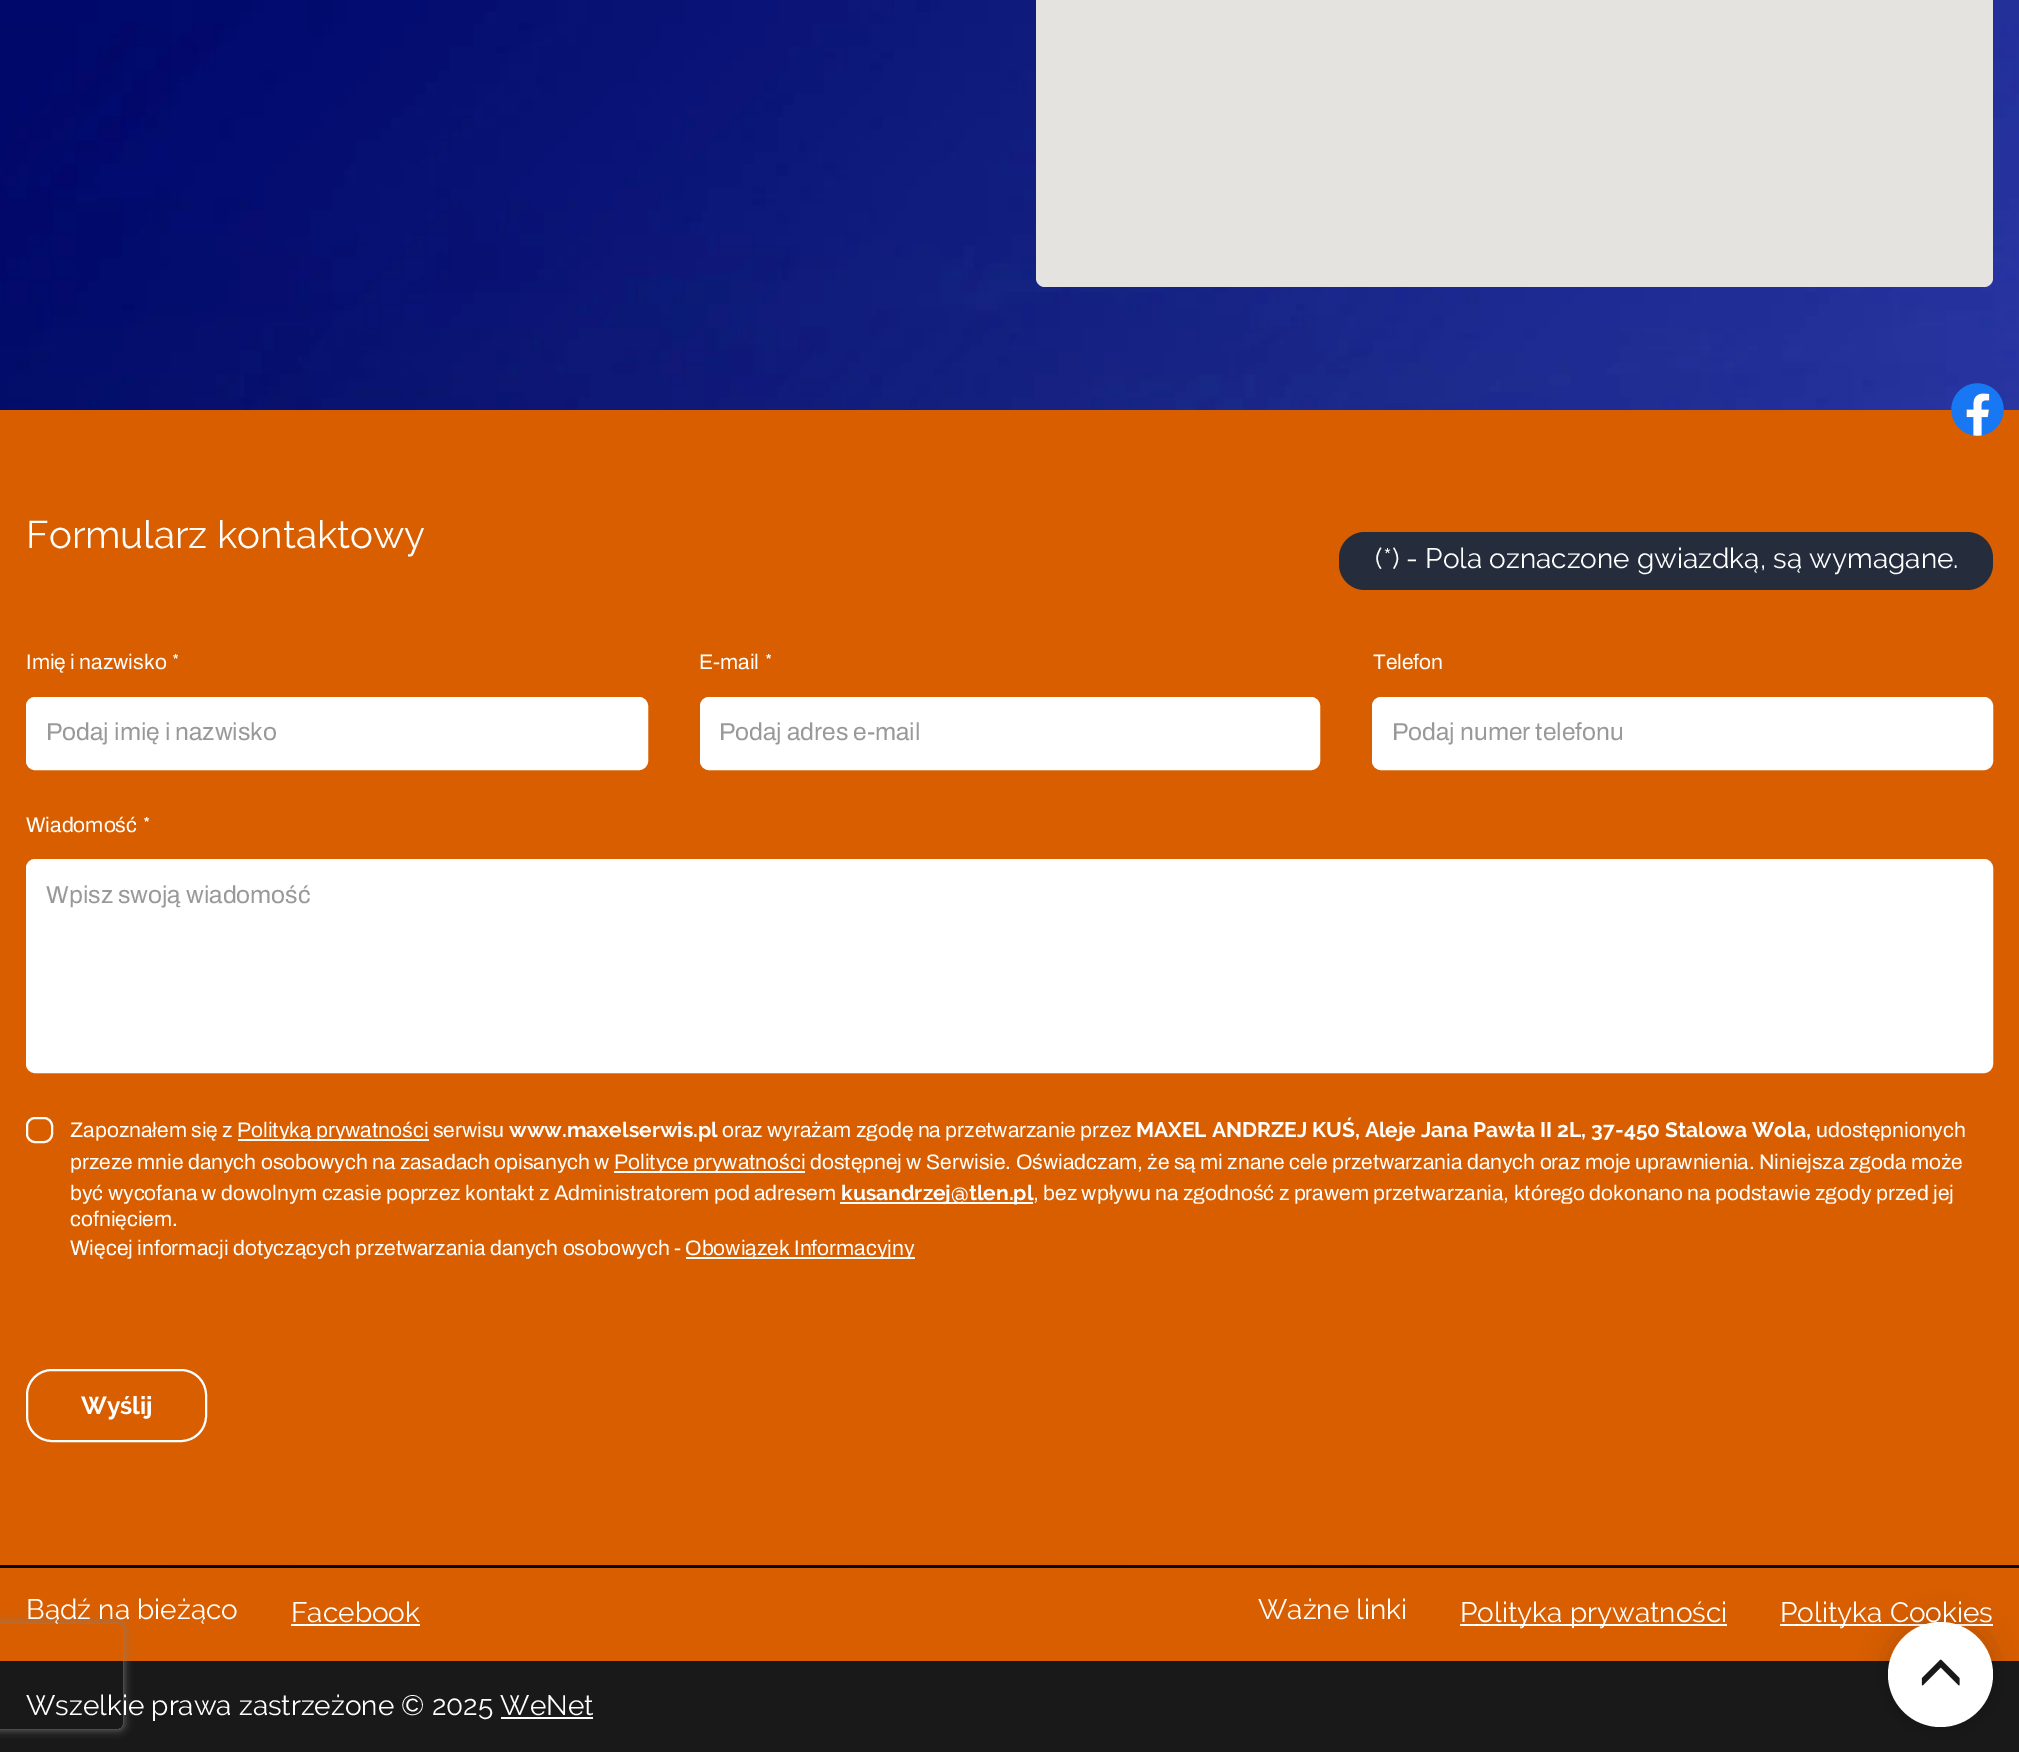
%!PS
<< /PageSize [2019 1752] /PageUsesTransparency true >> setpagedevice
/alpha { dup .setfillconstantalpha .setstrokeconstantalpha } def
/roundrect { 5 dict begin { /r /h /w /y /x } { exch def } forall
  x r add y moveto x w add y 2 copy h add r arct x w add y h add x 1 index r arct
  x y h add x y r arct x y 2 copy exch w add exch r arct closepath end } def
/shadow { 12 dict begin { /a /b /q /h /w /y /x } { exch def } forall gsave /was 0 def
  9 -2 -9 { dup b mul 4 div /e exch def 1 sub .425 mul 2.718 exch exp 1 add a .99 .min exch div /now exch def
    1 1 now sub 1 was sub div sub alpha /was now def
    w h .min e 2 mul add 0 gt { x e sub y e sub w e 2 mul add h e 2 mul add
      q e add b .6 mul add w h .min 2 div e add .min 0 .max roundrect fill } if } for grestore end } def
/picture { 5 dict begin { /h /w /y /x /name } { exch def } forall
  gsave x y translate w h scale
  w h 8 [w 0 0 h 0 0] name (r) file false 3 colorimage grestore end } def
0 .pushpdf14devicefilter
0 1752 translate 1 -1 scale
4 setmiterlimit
1 setgray
0 0 2019 1752 rectfill
(img1.rgb) 0 0 2019 1568 picture
0.898 0.89 0.875 setrgbcolor
1036 -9 957 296 9 roundrect fill
0.847 0.369 0 setrgbcolor
0 410 2019 1155 rectfill
/Raleway-Regular [38.5 0 0 -38.5 0 0] selectfont
1 setgray
26 548 moveto (Formularz kontaktowy) show
0.145 0.176 0.235 setrgbcolor
1339 532 654 58 26 roundrect fill
/Raleway-Regular [28 0 0 -28 0 0] selectfont
1 setgray
1375 568 moveto (\(*\) - Pola oznaczone gwiazdką, są wymagane.) show
/Archivo-Regular [21 0 0 -21 0 0] selectfont
26 669 moveto (Imię i nazwisko) show
/Raleway-Bold [21 0 0 -21 0 0] selectfont
172 669 moveto (*) show
27 698 620 71 8 roundrect gsave fill grestore
2 setlinewidth
stroke
/Archivo-Regular [24.5 0 0 -24.5 0 0] selectfont
0.6 setgray
46 740 moveto (Podaj imię i nazwisko) show
/Archivo-Regular [21 0 0 -21 0 0] selectfont
1 setgray
699 669 moveto (E-mail) show
/Raleway-Bold [21 0 0 -21 0 0] selectfont
765 669 moveto (*) show
701 698 618 71 8 roundrect gsave fill grestore
stroke
/Archivo-Regular [24.5 0 0 -24.5 0 0] selectfont
0.6 setgray
719 740 moveto (Podaj adres e-mail) show
/Archivo-Regular [21 0 0 -21 0 0] selectfont
1 setgray
1373 669 moveto (Telefon) show
1373 698 619 71 8 roundrect gsave fill grestore
stroke
/Archivo-Regular [24.5 0 0 -24.5 0 0] selectfont
0.6 setgray
1392 740 moveto (Podaj numer telefonu) show
/Archivo-Regular [21 0 0 -21 0 0] selectfont
1 setgray
26 832 moveto (Wiadomość) show
/Raleway-Bold [21 0 0 -21 0 0] selectfont
143 832 moveto (*) show
27 860 1965 212 8 roundrect gsave fill grestore
stroke
/Archivo-Regular [24.5 0 0 -24.5 0 0] selectfont
0.6 setgray
46 903 moveto (Wpisz swoją wiadomość) show
1 setgray
27 1118 25 24 8 roundrect stroke
/Archivo-Regular [21 0 0 -21 0 0] selectfont
70 1137 moveto (Zapoznałem się z) show
238 1139 191 2 rectfill
237 1137 moveto (Polityką prywatności serwisu) show
/Raleway-Bold [21 0 0 -21 0 0] selectfont
509 1137 moveto (www.maxelserwis.pl) show
/Archivo-Regular [21 0 0 -21 0 0] selectfont
722 1137 moveto (oraz wyrażam zgodę na przetwarzanie przez) show
/Raleway-Bold [21 0 0 -21 0 0] selectfont
1136 1137 moveto (MAXEL ANDRZEJ KUŚ, Aleje Jana Pawła II 2L, 37-450 Stalowa Wola,) show
/Archivo-Regular [21 0 0 -21 0 0] selectfont
1816 1137 moveto (udostępnionych) show
70 1169 moveto (przeze mnie danych osobowych na zasadach opisanych w) show
614 1171 191 2 rectfill
614 1169 moveto (Polityce prywatności dostępnej w Serwisie. Oświadczam, że są mi znane cele przetwarzania danych oraz moje uprawnienia. Niniejsza zgoda może) show
70 1200 moveto (być wycofana w dowolnym czasie poprzez kontakt z Administratorem pod adresem) show
840 1202 193 2 rectfill
/Raleway-Bold [21 0 0 -21 0 0] selectfont
841 1200 moveto (kusandrzej@tlen.pl) show
/Archivo-Regular [21 0 0 -21 0 0] selectfont
1033 1200 moveto (, bez wpływu na zgodność z prawem przetwarzania, którego dokonano na podstawie zgody przed jej) show
70 1226 moveto (cofnięciem.) show
70 1255 moveto (Więcej informacji dotyczących przetwarzania danych osobowych -) show
686 1257 229 2 rectfill
685 1255 moveto (Obowiązek Informacyjny) show
27 1370 179 71 25 roundrect stroke
/Raleway-Bold [24.5 0 0 -24.5 0 0] selectfont
81 1414 moveto (Wyślij) show
0.102 0.098 0.098 setrgbcolor
0 1661 2019 91 rectfill
0.847 0.369 0 setrgbcolor
0 1568 2019 93 rectfill
gsave
newpath 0 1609 moveto 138 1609 lineto 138 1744 lineto 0 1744 lineto closepath -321 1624 moveto 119 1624 lineto 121 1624 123 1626 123 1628 curveto 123 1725 lineto 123 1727 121 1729 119 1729 curveto -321 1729 lineto -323 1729 -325 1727 -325 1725 curveto -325 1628 lineto -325 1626 -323 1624 -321 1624 curveto closepath eoclip newpath
0.502 setgray
-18 1624 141 105 4 4.5 1 shadow
grestore
(img2.rgb) 1951 383 53 53 picture
1 setgray
1780 1624 213 2 rectfill
0 setgray
1887 1621 108 108 54 14 0.15 shadow
1 setgray
newpath 1940.5 1674.5 52.5 0 360 arc closepath fill
(img3.rgb) 1921 1659 39 27 picture
/Raleway-Regular [28 0 0 -28 0 0] selectfont
26 1619 moveto (Bądź na bieżąco) show
291 1622 moveto (Facebook) show
291 1624 129 2 rectfill
1258 1619 moveto (Ważne linki) show
1460 1624 267 2 rectfill
1460 1622 moveto (Polityka prywatności) show
1780 1622 moveto (Polityka Cookies) show
26 1715 moveto (Wszelkie prawa zastrzeżone © 2025 WeNet) show
501 1717 92 2 rectfill
.poppdf14devicefilter showpage
